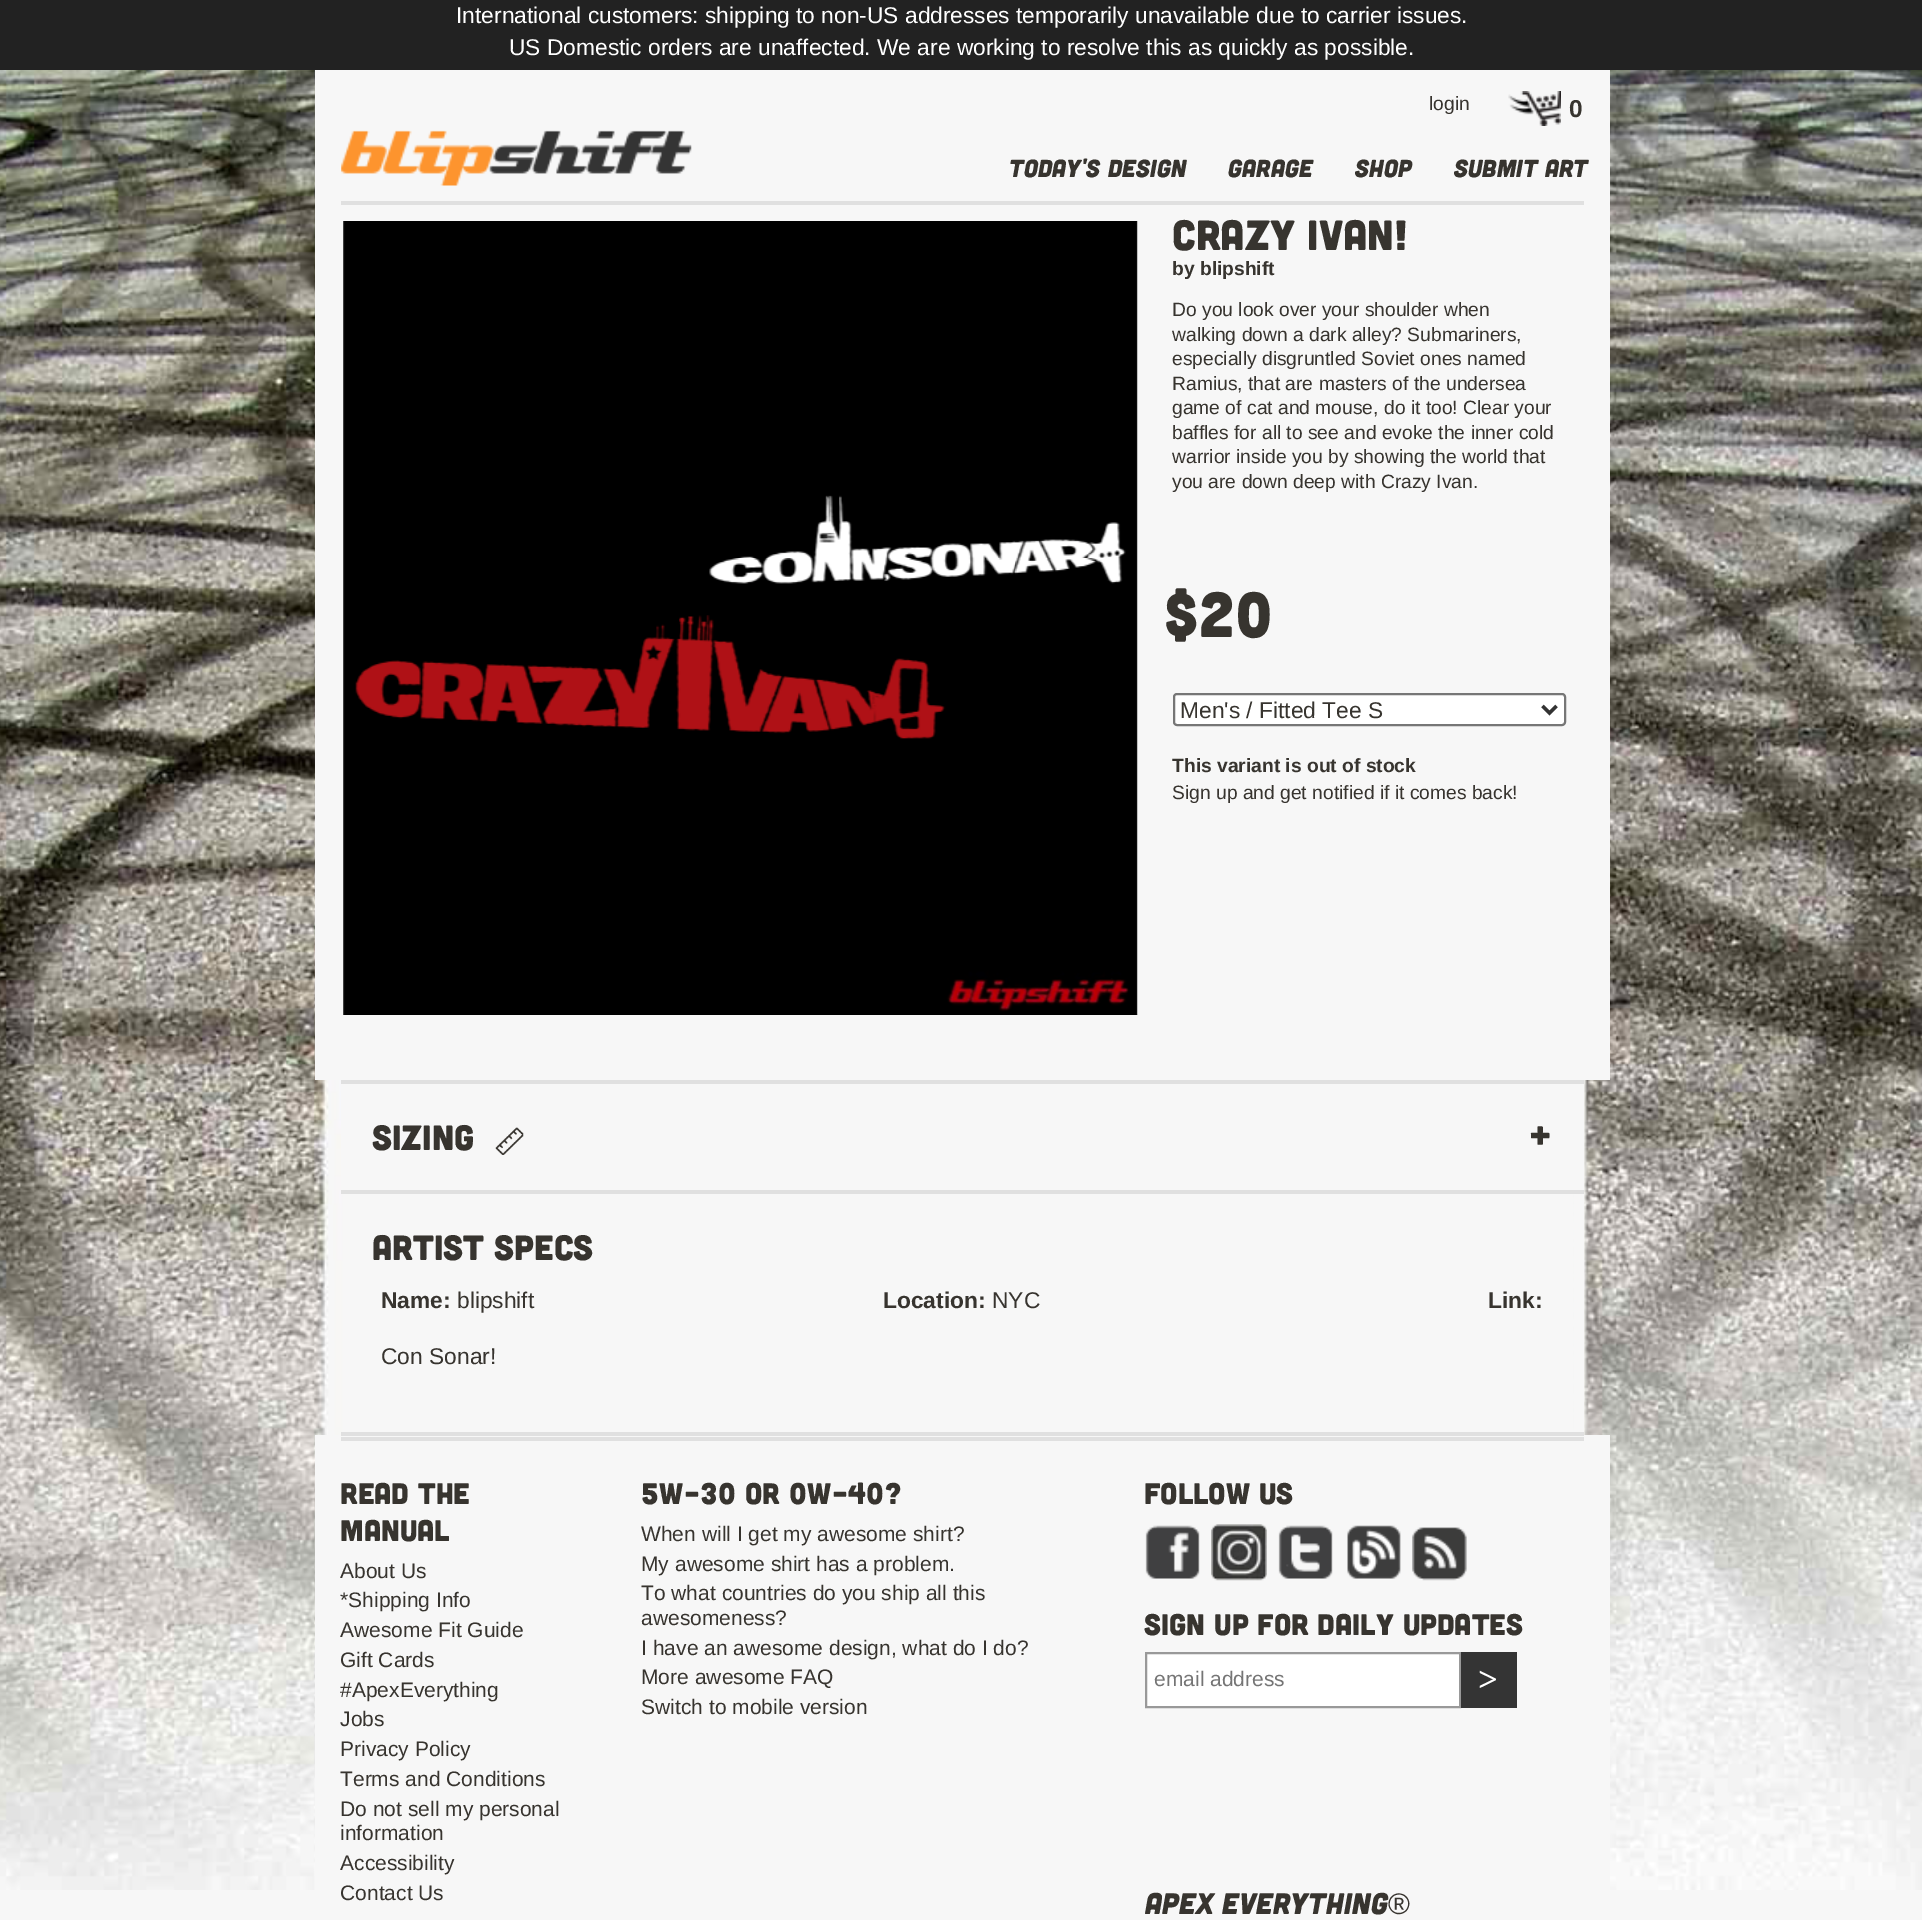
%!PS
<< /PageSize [1922 1920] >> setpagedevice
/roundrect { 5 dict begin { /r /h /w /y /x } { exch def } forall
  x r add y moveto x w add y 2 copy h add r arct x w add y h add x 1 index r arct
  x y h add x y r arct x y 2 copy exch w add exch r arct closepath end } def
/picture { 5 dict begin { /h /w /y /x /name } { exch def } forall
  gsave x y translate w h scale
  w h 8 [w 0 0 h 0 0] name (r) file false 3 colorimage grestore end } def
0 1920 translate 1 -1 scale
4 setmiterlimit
0.969 setgray
0 0 1922 1920 rectfill
(img1.rgb) 0 70 1922 1820 picture
0.133 setgray
0 0 1922 70 rectfill
/LiberationSans-Regular [22.75 0 0 -22.75 0 0] selectfont
1 setgray
456 23 moveto (International customers: shipping to non-US addresses temporarily unavailable due to carrier issues.) show
509 55 moveto (US Domestic orders are unaffected. We are working to resolve this as quickly as possible.) show
0.969 setgray
315 70 1295 1010 rectfill
(img2.rgb) 341 130 351 56 picture
/LiberationSans-Regular [19.25 0 0 -19.25 0 0] selectfont
0.216 0.204 0.184 setrgbcolor
1429 110 moveto (login) show
(img3.rgb) 1508 91 53 35 picture
/LiberationSans-Bold [24.5 0 0 -24.5 0 0] selectfont
1569 117 moveto (0) show
/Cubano-Italic [24.5 0 0 -24.5 0 0] selectfont
1009 177 moveto (Today's Design) show
1228 177 moveto (Garage) show
1355 177 moveto (Shop) show
1454 177 moveto (Submit Art) show
0.878 setgray
341 201 1243 4 rectfill
(img4.rgb) 343 221 795 794 picture
(img5.rgb) 1137 221 1 794 picture
/Cubano-Regular [42 0 0 -42 0 0] selectfont
0.216 0.204 0.184 setrgbcolor
1172 250 moveto (Crazy Ivan!) show
/LiberationSans-Bold [19.25 0 0 -19.25 0 0] selectfont
1172 275 moveto (by blipshift) show
/LiberationSans-Regular [19.25 0 0 -19.25 0 0] selectfont
1172 316 moveto (Do you look over your shoulder when) show
1172 341 moveto (walking down a dark alley? Submariners,) show
1172 365 moveto (especially disgruntled Soviet ones named) show
1172 390 moveto (Ramius, that are masters of the undersea) show
1172 414 moveto (game of cat and mouse, do it too! Clear your) show
1172 439 moveto (baffles for all to see and evoke the inner cold) show
1172 463 moveto (warrior inside you by showing the world that) show
1172 488 moveto (you are down deep with Crazy Ivan.) show
/Cubano-Regular [63 0 0 -63 0 0] selectfont
1163 637 moveto ($20) show
1 setgray
1174 694 391 31 3 roundrect gsave fill grestore
0.463 setgray
2 setlinewidth
stroke
0.2 setgray
3.5 setlinewidth
newpath 1542.5 706 moveto 1549.5 713 lineto 1556.5 706 lineto stroke
/LiberationSans-Regular [22.75 0 0 -22.75 0 0] selectfont
0.216 0.204 0.184 setrgbcolor
1180 718 moveto (Men's / Fitted Tee S) show
/LiberationSans-Bold [19.25 0 0 -19.25 0 0] selectfont
1172 772 moveto (This variant is out of stock) show
/LiberationSans-Regular [19.25 0 0 -19.25 0 0] selectfont
1172 799 moveto (Sign up and get notified if it comes back!) show
0.878 setgray
341 1080 1243 4 rectfill
0.969 setgray
341 1084 1243 106 rectfill
/Cubano-Regular [35 0 0 -35 0 0] selectfont
0.216 0.204 0.184 setrgbcolor
372 1150 moveto (Sizing) show
(img6.rgb) 495 1127 29 28 picture
/Cubano-Regular [32 0 0 -32 0 0] selectfont
1529 1146 moveto (+) show
0.878 setgray
341 1190 1243 4 rectfill
0.969 setgray
1574 1194 10 238 rectfill
/Cubano-Regular [35 0 0 -35 0 0] selectfont
0.216 0.204 0.184 setrgbcolor
372 1260 moveto (Artist Specs) show
/LiberationSans-Bold [22.75 0 0 -22.75 0 0] selectfont
381 1308 moveto (Name:) show
/LiberationSans-Regular [22.75 0 0 -22.75 0 0] selectfont
457 1308 moveto (blipshift) show
/LiberationSans-Bold [22.75 0 0 -22.75 0 0] selectfont
883 1308 moveto (Location:) show
/LiberationSans-Regular [22.75 0 0 -22.75 0 0] selectfont
992 1308 moveto (NYC) show
/LiberationSans-Bold [22.75 0 0 -22.75 0 0] selectfont
1488 1308 moveto (Link:) show
/LiberationSans-Regular [22.75 0 0 -22.75 0 0] selectfont
381 1364 moveto (Con Sonar!) show
0.969 setgray
315 1435 1295 455 rectfill
0.878 setgray
341 1432 1243 4 rectfill
341 1437 1243 4 rectfill
/Cubano-Regular [29.75 0 0 -29.75 0 0] selectfont
0.216 0.204 0.184 setrgbcolor
340 1504 moveto (Read the) show
340 1541 moveto (Manual) show
/LiberationSans-Regular [21 0 0 -21 0 0] selectfont
340 1578 moveto (About Us) show
340 1607 moveto (*Shipping Info) show
340 1637 moveto (Awesome Fit Guide) show
340 1667 moveto (Gift Cards) show
340 1697 moveto (#ApexEverything) show
340 1726 moveto (Jobs) show
340 1756 moveto (Privacy Policy) show
340 1786 moveto (Terms and Conditions) show
340 1816 moveto (Do not sell my personal) show
340 1840 moveto (information) show
340 1870 moveto (Accessibility) show
340 1900 moveto (Contact Us) show
/Cubano-Regular [29.75 0 0 -29.75 0 0] selectfont
641 1504 moveto (5W-30 or 0w-40?) show
/LiberationSans-Regular [21 0 0 -21 0 0] selectfont
641 1541 moveto (When will I get my awesome shirt?) show
641 1571 moveto (My awesome shirt has a problem.) show
641 1600 moveto (To what countries do you ship all this) show
641 1625 moveto (awesomeness?) show
641 1655 moveto (I have an awesome design, what do I do?) show
641 1684 moveto (More awesome FAQ) show
641 1714 moveto (Switch to mobile version) show
/Cubano-Regular [29.75 0 0 -29.75 0 0] selectfont
1144 1504 moveto (Follow Us) show
(img7.rgb) 1145 1525 55 54 picture
(img8.rgb) 1211 1524 56 57 picture
(img9.rgb) 1278 1525 55 54 picture
(img10.rgb) 1347 1525 54 54 picture
(img11.rgb) 1412 1527 55 54 picture
1144 1635 moveto (Sign up for daily updates) show
1 setgray
newpath 1146 1653 moveto 1460 1653 lineto 1460 1707 lineto 1146 1707 lineto closepath gsave fill grestore
0.6 setgray
2 setlinewidth
stroke
/LiberationSans-Regular [21 0 0 -21 0 0] selectfont
0.459 setgray
1154 1686 moveto (email address) show
0.204 setgray
1461 1652 56 56 rectfill
/LiberationSerif-Bold [35 0 0 -35 0 0] selectfont
1 setgray
1478 1691 moveto (>) show
/Cubano-Italic [29.75 0 0 -29.75 0 0] selectfont
0.216 0.204 0.184 setrgbcolor
1145 1914 moveto (Apex Everything) show
/LiberationSans-Regular [29.75 0 0 -29.75 0 0] selectfont
1388 1914 moveto (®) show
showpage
